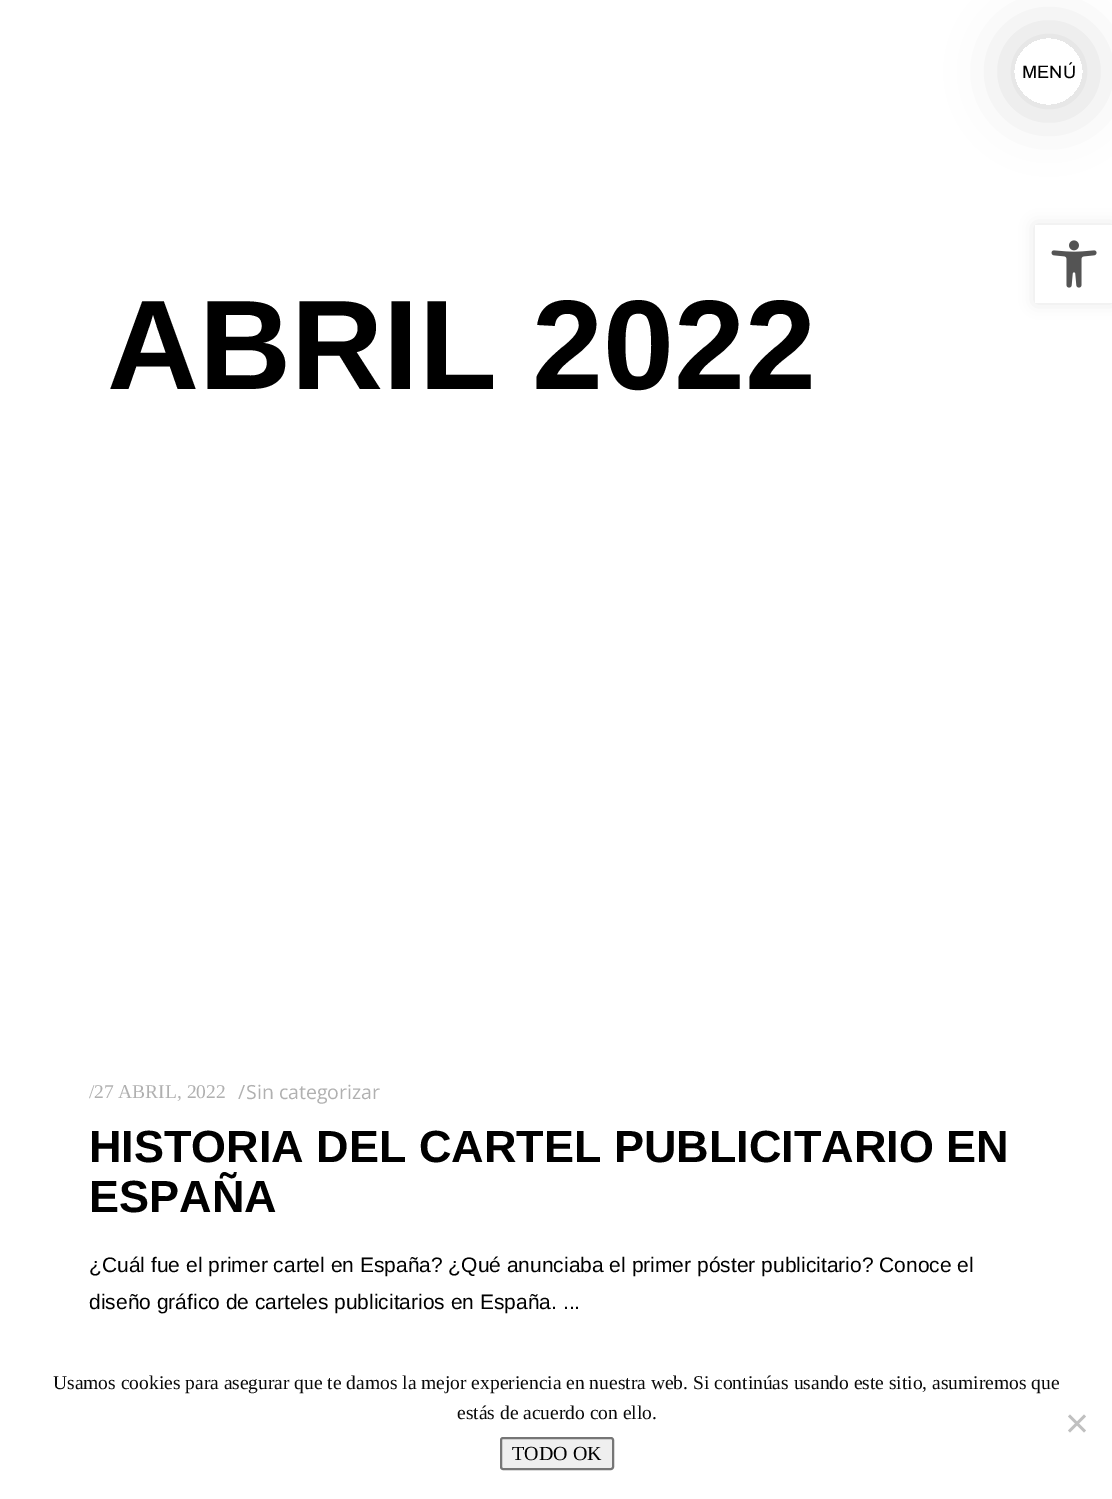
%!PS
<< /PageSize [1112 1499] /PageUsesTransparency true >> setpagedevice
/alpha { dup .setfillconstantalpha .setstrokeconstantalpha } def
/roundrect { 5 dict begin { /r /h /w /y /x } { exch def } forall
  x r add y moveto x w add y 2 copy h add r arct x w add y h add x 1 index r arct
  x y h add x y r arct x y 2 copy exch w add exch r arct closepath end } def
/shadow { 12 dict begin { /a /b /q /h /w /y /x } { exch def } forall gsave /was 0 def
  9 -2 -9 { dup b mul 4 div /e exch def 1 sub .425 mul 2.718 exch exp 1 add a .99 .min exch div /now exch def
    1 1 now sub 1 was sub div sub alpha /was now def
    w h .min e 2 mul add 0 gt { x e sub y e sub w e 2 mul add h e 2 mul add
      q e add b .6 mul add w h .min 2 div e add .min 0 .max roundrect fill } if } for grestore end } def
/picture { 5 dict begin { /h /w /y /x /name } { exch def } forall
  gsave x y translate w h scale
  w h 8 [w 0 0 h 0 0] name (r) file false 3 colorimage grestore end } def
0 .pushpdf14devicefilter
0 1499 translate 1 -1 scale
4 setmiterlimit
1 setgray
0 0 1112 1499 rectfill
gsave
newpath 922 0 moveto 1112 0 lineto 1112 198 lineto 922 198 lineto closepath 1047.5 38 moveto 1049.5 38 lineto 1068 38 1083 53 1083 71.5 curveto 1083 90 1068 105 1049.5 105 curveto 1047.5 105 lineto 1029 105 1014 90 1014 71.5 curveto 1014 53 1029 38 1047.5 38 curveto closepath eoclip newpath
0 setgray
1004 27 90 89 44.5 27 0.13 shadow
grestore
/Archivo-Regular [18 0 0 -18 0 0] selectfont
0 setgray
1022 78 moveto (MENÚ) show
gsave
newpath 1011 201 moveto 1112 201 lineto 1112 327 lineto 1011 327 lineto closepath 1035 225 moveto 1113 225 lineto 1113 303 lineto 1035 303 lineto closepath eoclip newpath
1035 225 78 78 0 7.5 0.1 shadow
grestore
(img1.rgb) 1051 240 46 48 picture
/LiberationSans-Bold [127.5 0 0 -127.5 0 0] selectfont
107 389 moveto (ABRIL 2022) show
/LiberationSerif-Regular [19.5 0 0 -19.5 0 0] selectfont
0.69 setgray
89 1098 moveto (/) show
94 1098 moveto (27 ABRIL, 2022) show
/OpenSans-Regular [19.5 0 0 -19.5 0 0] selectfont
238 1099 moveto (/) show
246 1099 moveto (Sin categorizar) show
/LiberationSans-Bold [45 0 0 -45 0 0] selectfont
0 setgray
89 1162 moveto (HISTORIA DEL CARTEL PUBLICITARIO EN) show
89 1212 moveto (ESPAÑA) show
/LiberationSans-Regular [21 0 0 -21 0 0] selectfont
89 1272 moveto (¿Cuál fue el primer cartel en España? ¿Qué anunciaba el primer póster publicitario? Conoce el) show
89 1309 moveto (diseño gráfico de carteles publicitarios en España. ...) show
/LiberationSerif-Regular [19.5 0 0 -19.5 0 0] selectfont
0.039 setgray
53 1389 moveto (Usamos cookies para asegurar que te damos la mejor experiencia en nuestra web. Si continúas usando este sitio, asumiremos que) show
457 1419 moveto (estás de acuerdo con ello.) show
0.753 setgray
newpath 1084 1414.5 moveto 1086 1416.5 lineto 1070 1432.5 lineto 1068 1430.5 lineto closepath fill
newpath 1068 1416.5 moveto 1070 1414.5 lineto 1086 1430.5 lineto 1084 1432.5 lineto closepath fill
0.937 setgray
501 1438 112 31 2 roundrect gsave fill grestore
0.463 setgray
2 setlinewidth
stroke
/LiberationSerif-Regular [20 0 0 -20 0 0] selectfont
0 setgray
512 1460 moveto (TODO OK) show
.poppdf14devicefilter showpage
